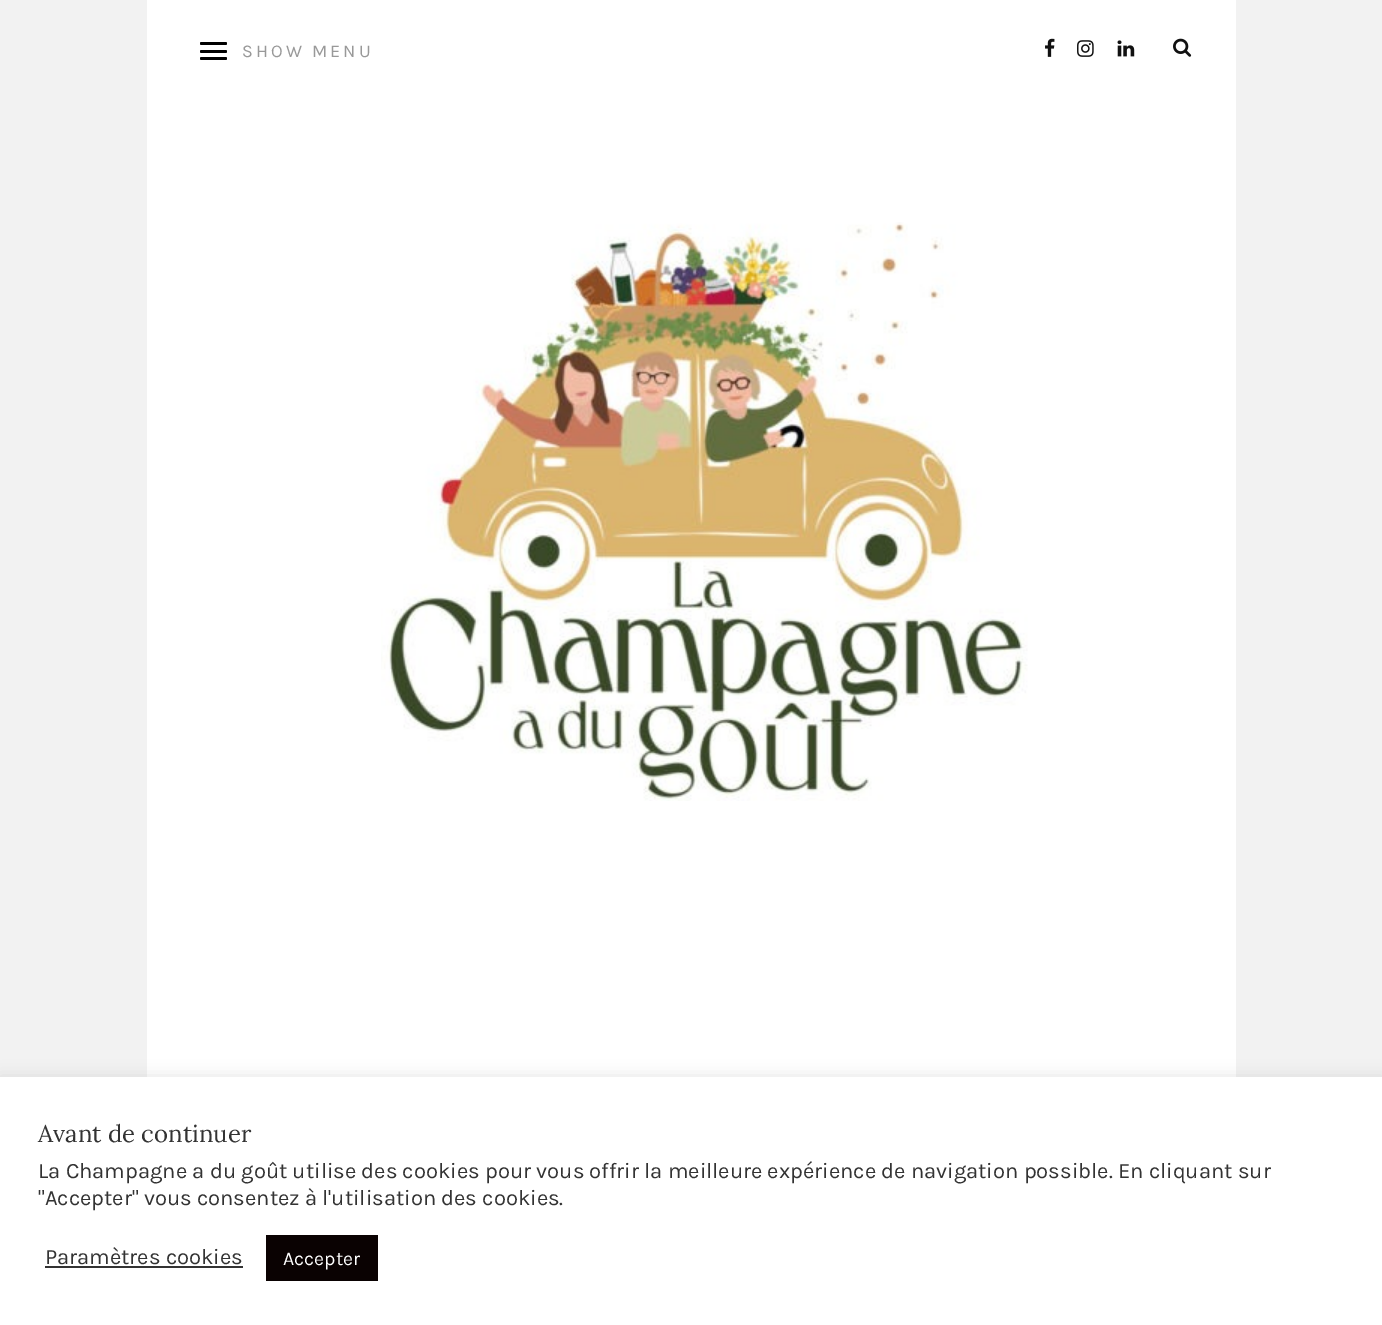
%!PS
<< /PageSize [1382 1325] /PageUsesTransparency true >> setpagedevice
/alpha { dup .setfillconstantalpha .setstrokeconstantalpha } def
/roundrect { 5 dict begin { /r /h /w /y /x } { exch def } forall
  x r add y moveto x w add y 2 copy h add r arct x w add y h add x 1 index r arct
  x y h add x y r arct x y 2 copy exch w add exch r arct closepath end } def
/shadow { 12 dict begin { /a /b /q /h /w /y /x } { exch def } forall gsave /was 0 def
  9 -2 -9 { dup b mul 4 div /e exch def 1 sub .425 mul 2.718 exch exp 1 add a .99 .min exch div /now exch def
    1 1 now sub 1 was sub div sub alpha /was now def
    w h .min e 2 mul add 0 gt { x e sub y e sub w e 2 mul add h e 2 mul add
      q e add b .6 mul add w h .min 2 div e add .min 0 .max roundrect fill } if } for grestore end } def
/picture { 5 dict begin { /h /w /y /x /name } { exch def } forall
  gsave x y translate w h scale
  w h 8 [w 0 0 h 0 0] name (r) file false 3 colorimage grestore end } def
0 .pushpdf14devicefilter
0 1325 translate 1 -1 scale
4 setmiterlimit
0.949 setgray
0 0 1382 1325 rectfill
1 setgray
147 0 1089 1077 rectfill
0 setgray
200 42 27 3 1.5 roundrect fill
200 50 27 3 1.5 roundrect fill
200 57 27 3 1.5 roundrect fill
/Karla-Regular [18 0 0 -18 0 0] selectfont
0.6 setgray
242 57 moveto 3 0 (SHOW MENU) ashow
(img1.rgb) 1045 38 10 19 picture
(img2.rgb) 1077 40 17 17 picture
(img3.rgb) 1117 40 18 17 picture
(img4.rgb) 1173 38 19 19 picture
(img5.rgb) 381 222 647 579 picture
0.675 0.671 0.671 setrgbcolor
0 1076 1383 249 0 7.5 0.3 shadow
1 setgray
0 1077 1382 248 rectfill
/Lora-Regular [24 0 0 -24 0 0] selectfont
0.2 setgray
38 1142 moveto (Avant de continuer) show
/Karla-Regular [22 0 0 -22 0 0] selectfont
38 1178 moveto (La Champagne a du goût utilise des cookies pour vous offrir la meilleure expérience de navigation possible. En cliquant sur) show
38 1205 moveto ("Accepter" vous consentez à l'utilisation des cookies.) show
45 1264 moveto (Paramètres cookies) show
45 1266 198 2 rectfill
0.039 0.008 0.008 setrgbcolor
266 1235 112 46 rectfill
/Karla-Regular [19.5 0 0 -19.5 0 0] selectfont
1 setgray
283 1265 moveto (Accepter) show
.poppdf14devicefilter showpage
